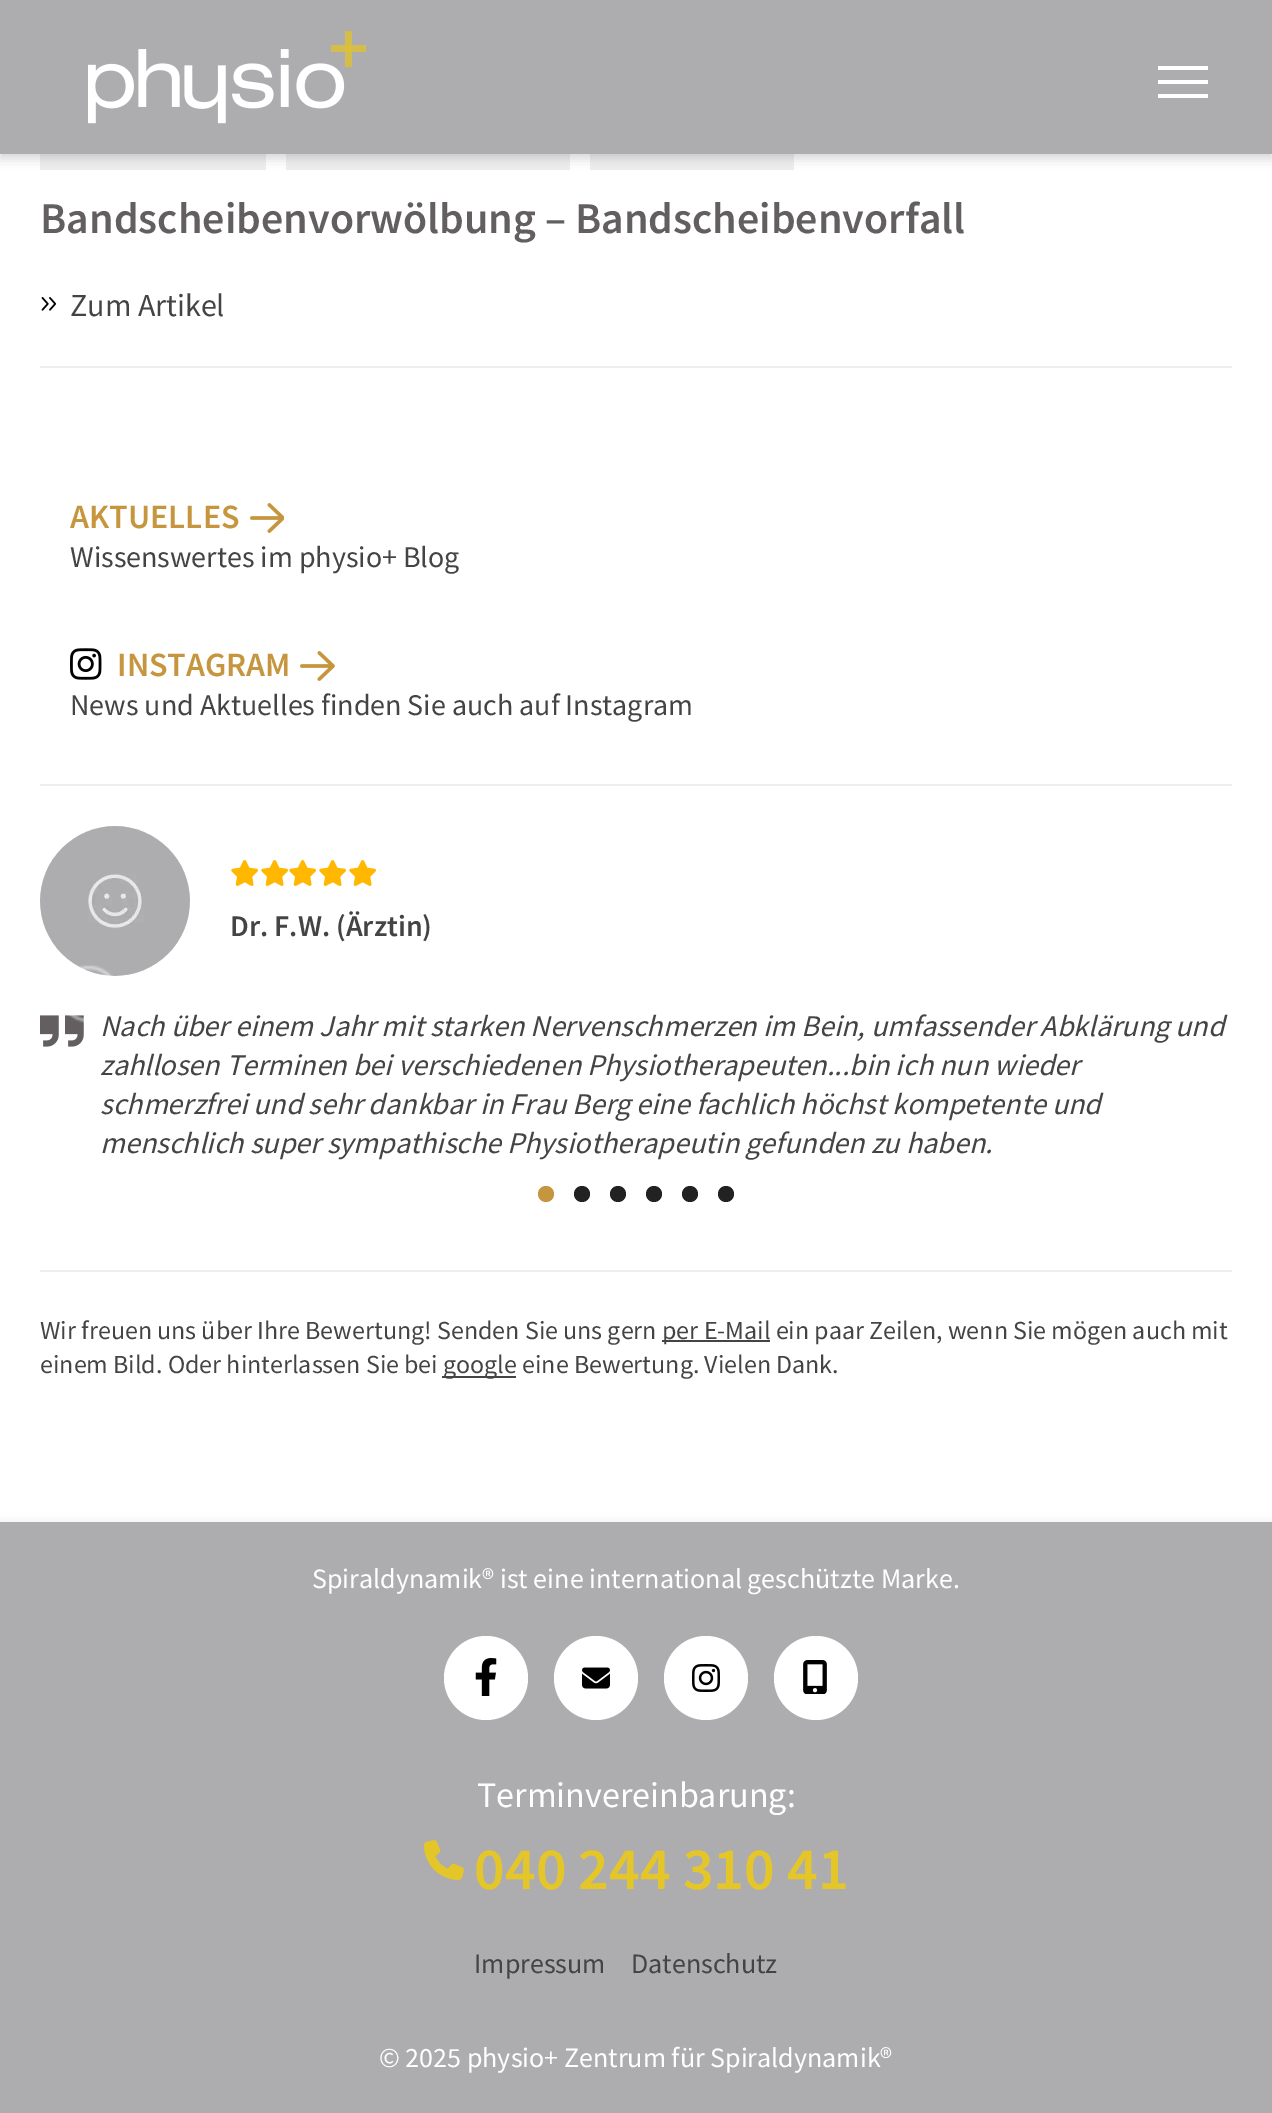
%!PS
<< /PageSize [1272 2113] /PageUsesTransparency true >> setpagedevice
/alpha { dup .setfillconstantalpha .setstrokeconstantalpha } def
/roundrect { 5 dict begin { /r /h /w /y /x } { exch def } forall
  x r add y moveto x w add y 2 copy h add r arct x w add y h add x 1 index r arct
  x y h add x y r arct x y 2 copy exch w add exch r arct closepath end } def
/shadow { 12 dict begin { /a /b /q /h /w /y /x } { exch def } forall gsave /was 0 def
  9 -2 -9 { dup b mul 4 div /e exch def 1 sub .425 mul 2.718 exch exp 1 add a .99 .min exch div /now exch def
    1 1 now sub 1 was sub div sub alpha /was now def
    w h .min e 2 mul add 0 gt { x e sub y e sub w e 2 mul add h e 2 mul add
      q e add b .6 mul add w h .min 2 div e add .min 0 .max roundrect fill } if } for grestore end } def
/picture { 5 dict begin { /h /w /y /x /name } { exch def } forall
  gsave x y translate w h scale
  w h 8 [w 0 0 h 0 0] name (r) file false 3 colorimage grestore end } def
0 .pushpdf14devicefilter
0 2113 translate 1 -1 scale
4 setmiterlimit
1 setgray
0 0 1272 2113 rectfill
0.933 setgray
40 154 226 16 rectfill
286 154 284 16 rectfill
590 154 204 16 rectfill
0.392 setgray
0 4 1272 154 0 6 0.3 shadow
0.678 0.678 0.686 setrgbcolor
0 0 1272 154 rectfill
(img1.rgb) 88 31 278 93 picture
1 setgray
1158 66 50 4 rectfill
1158 80 50 4 rectfill
1158 94 50 4 rectfill
0.933 setgray
40 366 1192 2 rectfill
/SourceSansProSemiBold-SemiBold [44 0 0 -44 0 0] selectfont
0.388 0.373 0.38 setrgbcolor
40 233 moveto (Bandscheibenvorwölbung – Bandscheibenvorfall) show
(img2.rgb) 41 297 16 14 picture
/SourceSansPro-Regular [32 0 0 -32 0 0] selectfont
0.267 setgray
70 316 moveto (Zum Artikel) show
0.933 setgray
40 784 1192 2 rectfill
/SourceSansProSemiBold-SemiBold [34 0 0 -34 0 0] selectfont
0.773 0.588 0.243 setrgbcolor
70 528 moveto (AKTUELLES) show
(img3.rgb) 250 503 34 30 picture
/SourceSansPro-Regular [30 0 0 -30 0 0] selectfont
0.267 setgray
70 567 moveto (Wissenswertes im physio+ Blog) show
(img4.rgb) 70 648 32 32 picture
/SourceSansProSemiBold-SemiBold [34 0 0 -34 0 0] selectfont
0.773 0.588 0.243 setrgbcolor
117 676 moveto (INSTAGRAM) show
(img5.rgb) 300 651 35 30 picture
/SourceSansPro-Regular [30 0 0 -30 0 0] selectfont
0.267 setgray
70 715 moveto (News und Aktuelles finden Sie auch auf Instagram) show
(img6.rgb) 40 826 150 150 picture
(img7.rgb) 231 860 27 26 picture
(img7.rgb) 261 860 27 26 picture
(img7.rgb) 289 860 27 26 picture
(img7.rgb) 319 860 27 26 picture
(img7.rgb) 349 860 27 26 picture
/SourceSansProSemiBold-SemiBold [30 0 0 -30 0 0] selectfont
230 936 moveto (Dr. F.W. \(Ärztin\)) show
(img8.rgb) 40 1015 44 32 picture
/SourceSansPro-Italic [30 0 0 -30 0 0] selectfont
100 1036 moveto (Nach über einem Jahr mit starken Nervenschmerzen im Bein, umfassender Abklärung und) show
100 1075 moveto (zahllosen Terminen bei verschiedenen Physiotherapeuten...bin ich nun wieder) show
100 1114 moveto (schmerzfrei und sehr dankbar in Frau Berg eine fachlich höchst kompetente und) show
100 1153 moveto (menschlich super sympathische Physiotherapeutin gefunden zu haben.) show
(img9.rgb) 68 965 45 58 picture
(img10.rgb) 1181 1021 12 2 picture
0.773 0.588 0.243 setrgbcolor
newpath 546 1194 8 0 360 arc closepath fill
0.133 setgray
newpath 582 1194 8 0 360 arc closepath fill
newpath 618 1194 8 0 360 arc closepath fill
newpath 654 1194 8 0 360 arc closepath fill
newpath 690 1194 8 0 360 arc closepath fill
newpath 726 1194 8 0 360 arc closepath fill
0.933 setgray
40 1270 1192 2 rectfill
/SourceSansPro-Regular [26 0 0 -26 0 0] selectfont
0.267 setgray
40 1339 moveto (Wir freuen uns über Ihre Bewertung! Senden Sie uns gern) show
662 1340 108 2 rectfill
662 1339 moveto (per E-Mail ein paar Zeilen, wenn Sie mögen auch mit) show
40 1373 moveto (einem Bild. Oder hinterlassen Sie bei) show
442 1376 74 2 rectfill
443 1373 moveto (google eine Bewertung. Vielen Dank.) show
0.392 setgray
0 1526 1272 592 0 6 0.3 shadow
0.678 0.678 0.686 setrgbcolor
0 1522 1272 591 rectfill
/SourceSansPro-Regular [28 0 0 -28 0 0] selectfont
1 setgray
312 1588 moveto (Spiraldynamik® ist eine international geschützte Marke.) show
newpath 486 1678 42 0 360 arc closepath fill
(img11.rgb) 475 1658 22 38 picture
newpath 596 1678 42 0 360 arc closepath fill
(img12.rgb) 582 1667 28 22 picture
newpath 706 1678 42 0 360 arc closepath fill
(img13.rgb) 692 1664 28 28 picture
newpath 816 1678 42 0 360 arc closepath fill
(img14.rgb) 803 1660 24 34 picture
/SourceSansPro-Regular [36 0 0 -36 0 0] selectfont
477 1807 moveto (Terminvereinbarung:) show
(img15.rgb) 424 1840 40 40 picture
/SourceSansProSemiBold-SemiBold [60 0 0 -60 0 0] selectfont
0.898 0.776 0.161 setrgbcolor
474 1889 moveto (040 244 310 41) show
/SourceSansPro-Regular [28 0 0 -28 0 0] selectfont
0.267 setgray
474 1973 moveto (Impressum) show
631 1973 moveto (Datenschutz) show
1 setgray
379 2067 moveto (© 2025 physio+ Zentrum für Spiraldynamik®) show
.poppdf14devicefilter showpage
